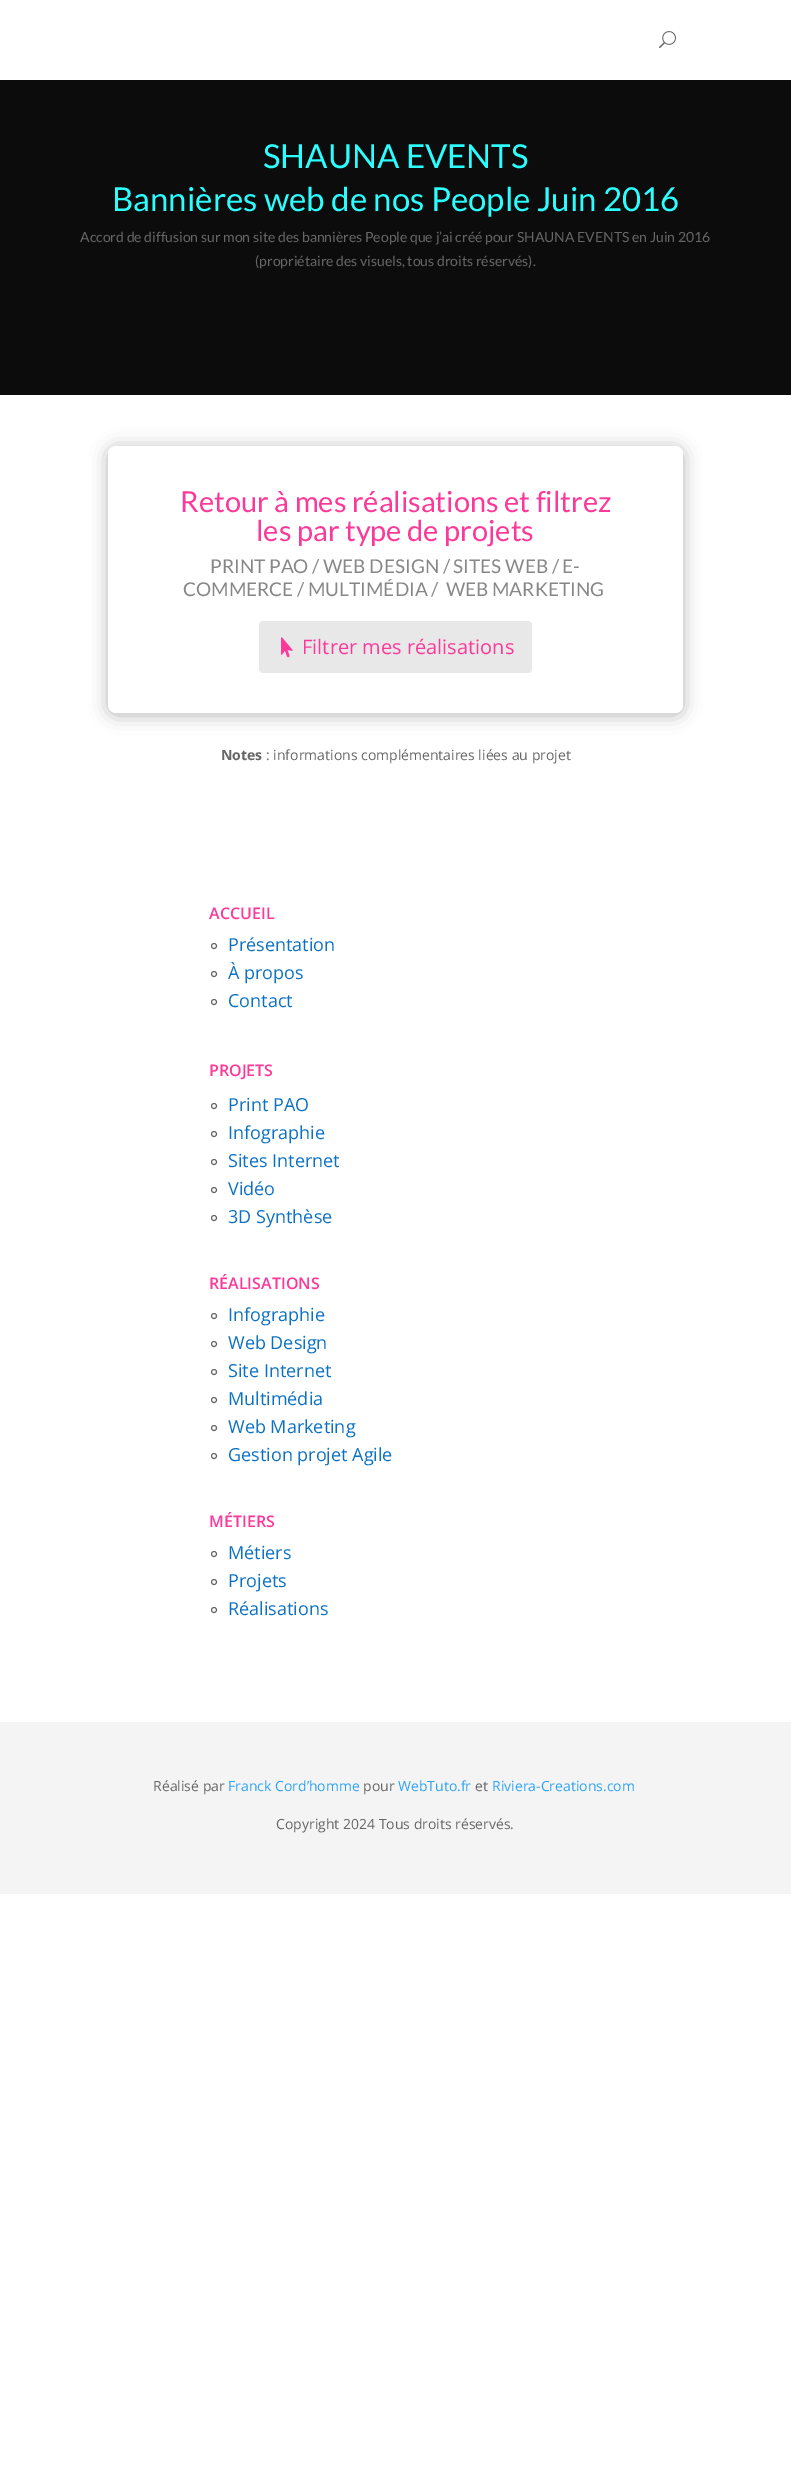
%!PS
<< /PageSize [791 2482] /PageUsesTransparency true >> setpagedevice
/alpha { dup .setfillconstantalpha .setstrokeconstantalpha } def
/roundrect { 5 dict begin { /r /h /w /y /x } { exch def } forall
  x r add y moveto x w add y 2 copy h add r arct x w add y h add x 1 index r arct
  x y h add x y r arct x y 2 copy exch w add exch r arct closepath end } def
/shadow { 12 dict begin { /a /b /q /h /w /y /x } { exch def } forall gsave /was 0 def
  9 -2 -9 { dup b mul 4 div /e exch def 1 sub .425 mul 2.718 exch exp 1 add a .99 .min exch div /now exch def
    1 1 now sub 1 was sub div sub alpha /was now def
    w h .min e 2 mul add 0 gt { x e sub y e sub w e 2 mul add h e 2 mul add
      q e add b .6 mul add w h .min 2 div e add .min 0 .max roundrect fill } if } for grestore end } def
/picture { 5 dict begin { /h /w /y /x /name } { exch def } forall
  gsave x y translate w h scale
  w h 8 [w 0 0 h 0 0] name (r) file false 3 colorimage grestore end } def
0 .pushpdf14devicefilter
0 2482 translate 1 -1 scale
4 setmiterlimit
1 setgray
0 0 791 2482 rectfill
(img1.rgb) 659 31 17 18 picture
0.047 setgray
0 80 791 315 rectfill
/Lato-Regular [33 0 0 -33 0 0] selectfont
0.173 0.992 0.996 setrgbcolor
263 168 moveto (SHAUNA EVENTS) show
112 211 moveto (Bannières web de nos People Juin 2016) show
/Lato-Regular [14 0 0 -14 0 0] selectfont
0.4 setgray
80 242 moveto (Accord de diffusion sur mon site des bannières People que j’ai créé pour SHAUNA EVENTS en Juin 2016) show
255 266 moveto (\(propriétaire des visuels, tous droits réservés\).) show
0 setgray
108 448 575 267 8 9 0.3 shadow
1 setgray
108 446 575 267 8 roundrect fill
/Lato-Regular [29 0 0 -29 0 0] selectfont
0.988 0.22 0.6 setrgbcolor
180 512 moveto (Retour à mes réalisations et filtrez) show
256 541 moveto (les par type de projets) show
/Lato-Regular [19 0 0 -19 0 0] selectfont
0.529 setgray
210 573 moveto (PRINT PAO / WEB DESIGN / SITES WEB / E-) show
183 596 moveto (COMMERCE / MULTIMÉDIA /  WEB MARKETING) show
0.91 setgray
newpath 263 621 moveto 528 621 lineto 530 621 532 623 532 625 curveto 532 669 lineto 532 671 530 673 528 673 curveto 263 673 lineto 261 673 259 671 259 669 curveto 259 625 lineto 259 623 261 621 263 621 curveto closepath fill
(img2.rgb) 281 637 12 21 picture
/OpenSans-Regular [20 0 0 -20 0 0] selectfont
0.988 0.22 0.6 setrgbcolor
302 654 moveto (Filtrer mes réalisations) show
/OpenSans-Bold [14 0 0 -14 0 0] selectfont
0.4 setgray
221 760 moveto (Notes) show
/OpenSans-Regular [14 0 0 -14 0 0] selectfont
266 760 moveto (: informations complémentaires liées au projet) show
/OpenSans-SemiBold [16 0 0 -16 0 0] selectfont
0.988 0.22 0.6 setrgbcolor
209 919 moveto (ACCUEIL) show
0.4 setgray
newpath 214 946 2.5 0 360 arc closepath stroke
/OpenSans-Regular [18 0 0 -18 0 0] selectfont
0.047 0.443 0.765 setrgbcolor
228 951 moveto (Présentation) show
0.4 setgray
newpath 214 974 2.5 0 360 arc closepath stroke
0.047 0.443 0.765 setrgbcolor
228 979 moveto (À propos) show
0.4 setgray
newpath 214 1002 2.5 0 360 arc closepath stroke
0.047 0.443 0.765 setrgbcolor
228 1007 moveto (Contact) show
/OpenSans-SemiBold [16 0 0 -16 0 0] selectfont
0.988 0.22 0.6 setrgbcolor
209 1076 moveto (PROJETS) show
0.4 setgray
newpath 214 1106 2.5 0 360 arc closepath stroke
/OpenSans-Regular [18 0 0 -18 0 0] selectfont
0.047 0.443 0.765 setrgbcolor
228 1111 moveto (Print PAO) show
0.4 setgray
newpath 214 1134 2.5 0 360 arc closepath stroke
0.047 0.443 0.765 setrgbcolor
228 1139 moveto (Infographie) show
0.4 setgray
newpath 214 1162 2.5 0 360 arc closepath stroke
0.047 0.443 0.765 setrgbcolor
228 1167 moveto (Sites Internet) show
0.4 setgray
newpath 214 1190 2.5 0 360 arc closepath stroke
0.047 0.443 0.765 setrgbcolor
228 1195 moveto (Vidéo) show
0.4 setgray
newpath 214 1218 2.5 0 360 arc closepath stroke
0.047 0.443 0.765 setrgbcolor
228 1223 moveto (3D Synthèse) show
/OpenSans-SemiBold [16 0 0 -16 0 0] selectfont
0.988 0.22 0.6 setrgbcolor
209 1289 moveto (RÉALISATIONS) show
0.4 setgray
newpath 214 1316 2.5 0 360 arc closepath stroke
/OpenSans-Regular [18 0 0 -18 0 0] selectfont
0.047 0.443 0.765 setrgbcolor
228 1321 moveto (Infographie) show
0.4 setgray
newpath 214 1344 2.5 0 360 arc closepath stroke
0.047 0.443 0.765 setrgbcolor
228 1349 moveto (Web Design) show
0.4 setgray
newpath 214 1372 2.5 0 360 arc closepath stroke
0.047 0.443 0.765 setrgbcolor
228 1377 moveto (Site Internet) show
0.4 setgray
newpath 214 1400 2.5 0 360 arc closepath stroke
0.047 0.443 0.765 setrgbcolor
228 1405 moveto (Multimédia) show
0.4 setgray
newpath 214 1428 2.5 0 360 arc closepath stroke
0.047 0.443 0.765 setrgbcolor
228 1433 moveto (Web Marketing) show
0.4 setgray
newpath 214 1456 2.5 0 360 arc closepath stroke
0.047 0.443 0.765 setrgbcolor
228 1461 moveto (Gestion projet Agile) show
/OpenSans-SemiBold [16 0 0 -16 0 0] selectfont
0.988 0.22 0.6 setrgbcolor
209 1527 moveto (MÉTIERS) show
0.4 setgray
newpath 214 1554 2.5 0 360 arc closepath stroke
/OpenSans-Regular [18 0 0 -18 0 0] selectfont
0.047 0.443 0.765 setrgbcolor
228 1559 moveto (Métiers) show
0.4 setgray
newpath 214 1582 2.5 0 360 arc closepath stroke
0.047 0.443 0.765 setrgbcolor
228 1587 moveto (Projets) show
0.4 setgray
newpath 214 1610 2.5 0 360 arc closepath stroke
0.047 0.443 0.765 setrgbcolor
228 1615 moveto (Réalisations) show
0.957 setgray
0 1722 791 172 rectfill
/OpenSans-Regular [14 0 0 -14 0 0] selectfont
0.4 setgray
153 1791 moveto (Réalisé par) show
0.18 0.639 0.949 setrgbcolor
228 1791 moveto (Franck Cord’homme) show
0.4 setgray
363 1791 moveto (pour) show
0.18 0.639 0.949 setrgbcolor
398 1791 moveto (WebTuto.fr) show
0.4 setgray
475 1791 moveto (et) show
0.18 0.639 0.949 setrgbcolor
492 1791 moveto (Riviera-Creations.com) show
0.4 setgray
276 1829 moveto (Copyright 2024 Tous droits réservés.) show
.poppdf14devicefilter showpage
